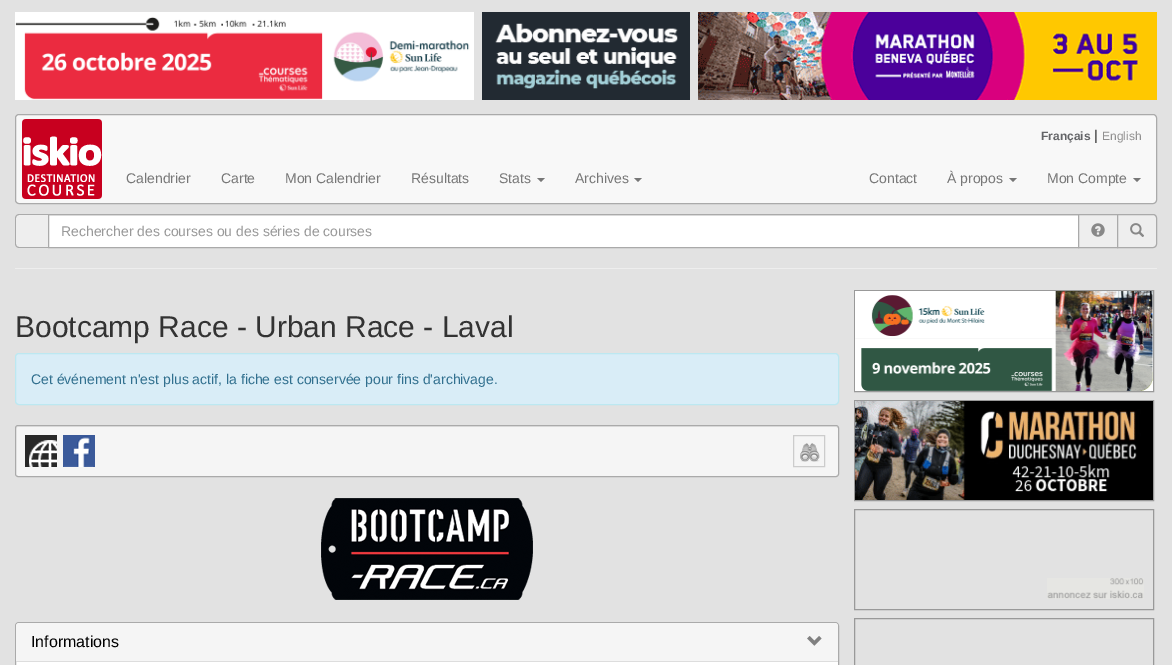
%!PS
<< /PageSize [1172 665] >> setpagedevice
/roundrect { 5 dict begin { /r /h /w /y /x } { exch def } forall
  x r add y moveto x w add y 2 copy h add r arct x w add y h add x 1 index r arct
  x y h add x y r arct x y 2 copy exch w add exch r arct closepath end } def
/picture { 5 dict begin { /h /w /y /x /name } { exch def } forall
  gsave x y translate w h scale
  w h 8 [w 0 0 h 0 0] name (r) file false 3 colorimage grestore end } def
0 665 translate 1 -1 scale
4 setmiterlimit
0.886 setgray
0 0 1172 665 rectfill
(img1.rgb) 15 12 459 88 picture
(img2.rgb) 482 12 208 88 picture
(img3.rgb) 698 12 459 88 picture
0.973 setgray
15.5 114.5 1141 89 3.5 roundrect gsave fill grestore
0.667 setgray
stroke
(img4.rgb) 22 119 80 80 picture
/LiberationSans-Bold [12 0 0 -12 0 0] selectfont
0.388 0.392 0.404 setrgbcolor
1041 140 moveto (Français) show
/LiberationSans-Regular [14 0 0 -14 0 0] selectfont
0.2 setgray
1094 140 moveto (|) show
/LiberationSans-Regular [12 0 0 -12 0 0] selectfont
0.569 0.565 0.565 setrgbcolor
1102 140 moveto (English) show
/LiberationSans-Regular [14 0 0 -14 0 0] selectfont
0.467 setgray
126 183 moveto (Calendrier) show
221 183 moveto (Carte) show
285 183 moveto (Mon Calendrier) show
411 183 moveto (Résultats) show
499 183 moveto (Stats) show
newpath 537 178 moveto 545 178 lineto 541 182 lineto closepath fill
575 183 moveto (Archives) show
newpath 634 178 moveto 642 178 lineto 638 182 lineto closepath fill
869 183 moveto (Contact) show
947 183 moveto (À propos) show
newpath 1009 178 moveto 1017 178 lineto 1013 182 lineto closepath fill
1047 183 moveto (Mon Compte) show
newpath 1133 178 moveto 1141 178 lineto 1137 182 lineto closepath fill
0.933 setgray
newpath 19 214 moveto 48 214 lineto 48 248 lineto 19 248 lineto 17 248 15 246 15 244 curveto 15 218 lineto 15 216 17 214 19 214 curveto closepath fill
0.667 setgray
newpath 19 214 moveto 48 214 lineto 48 248 lineto 19 248 lineto 17 248 15 246 15 244 curveto 15 218 lineto 15 216 17 214 19 214 curveto closepath 19 215 moveto 48 215 lineto 48 247 lineto 19 247 lineto 17.5 247 16 245.5 16 244 curveto 16 218 lineto 16 216.5 17.5 215 19 215 curveto closepath eofill
1 setgray
49 216 1029 31 rectfill
0.925 setgray
49 215 1029 1 rectfill
0.667 setgray
48.5 214.5 1030 33 rectstroke
0.6 setgray
61 236 moveto (Rechercher des courses ou des séries de courses) show
0.933 setgray
newpath 1078.5 214.5 moveto 1117.5 214.5 lineto 1117.5 247.5 lineto 1078.5 247.5 lineto closepath gsave fill grestore
0.667 setgray
stroke
(img5.rgb) 1091 223 14 14 picture
0.933 setgray
newpath 1117.5 214.5 moveto 1153 214.5 lineto 1155 214.5 1156.5 216 1156.5 218 curveto 1156.5 244 lineto 1156.5 246 1155 247.5 1153 247.5 curveto 1117.5 247.5 lineto closepath gsave fill grestore
0.667 setgray
stroke
(img6.rgb) 1130 223 14 14 picture
0.933 setgray
15 268 1142 1 rectfill
/LiberationSans-Regular [30 0 0 -30 0 0] selectfont
0.2 setgray
15 337 moveto (Bootcamp Race - Urban Race - Laval) show
0.851 0.929 0.969 setrgbcolor
15.5 353.5 823 51 3.5 roundrect gsave fill grestore
0.737 0.91 0.945 setrgbcolor
stroke
/LiberationSans-Regular [14 0 0 -14 0 0] selectfont
0.192 0.439 0.561 setrgbcolor
31 384 moveto (Cet événement n'est plus actif, la fiche est conservée pour fins d'archivage.) show
0.961 setgray
15 425 824 52 3 roundrect fill
0.914 setgray
newpath 18 427 moveto 836 427 lineto 837 427 838 428 838 429 curveto 838 428 838 426 836 426 curveto 18 426 lineto 16 426 16 428 16 429 curveto 16 428 17 427 18 427 curveto closepath fill
0.667 setgray
15.5 425.5 823 51 2.5 roundrect stroke
(img7.rgb) 25 435 32 32 picture
(img8.rgb) 63 435 32 32 picture
0.8 setgray
793.5 435.5 31 31 rectstroke
(img9.rgb) 800 443 20 19 picture
(img10.rgb) 321 498 212 102 picture
1 setgray
15.5 622.5 823 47 3.5 roundrect gsave fill grestore
0.667 setgray
stroke
0.961 setgray
newpath 19 623 moveto 835 623 lineto 836.5 623 838 624.5 838 626 curveto 838 661 lineto 16 661 lineto 16 626 lineto 16 624.5 17.5 623 19 623 curveto closepath fill
/LiberationSans-Regular [16 0 0 -16 0 0] selectfont
0 setgray
31 647 moveto (Informations) show
(img11.rgb) 807 636 15 10 picture
0.867 setgray
16 661 822 1 rectfill
0.6 setgray
854.5 290.5 299 101 rectstroke
(img12.rgb) 855 291 298 100 picture
854.5 400.5 299 100 rectstroke
(img13.rgb) 855 401 298 99 picture
854.5 509.5 299 100 rectstroke
(img14.rgb) 1047 578 97 21 picture
854.5 618.5 299 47 rectstroke
showpage
